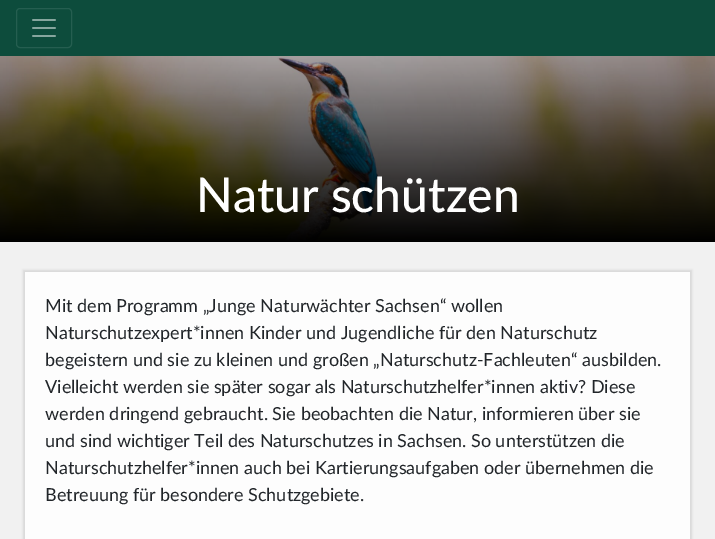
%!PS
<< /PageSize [715 539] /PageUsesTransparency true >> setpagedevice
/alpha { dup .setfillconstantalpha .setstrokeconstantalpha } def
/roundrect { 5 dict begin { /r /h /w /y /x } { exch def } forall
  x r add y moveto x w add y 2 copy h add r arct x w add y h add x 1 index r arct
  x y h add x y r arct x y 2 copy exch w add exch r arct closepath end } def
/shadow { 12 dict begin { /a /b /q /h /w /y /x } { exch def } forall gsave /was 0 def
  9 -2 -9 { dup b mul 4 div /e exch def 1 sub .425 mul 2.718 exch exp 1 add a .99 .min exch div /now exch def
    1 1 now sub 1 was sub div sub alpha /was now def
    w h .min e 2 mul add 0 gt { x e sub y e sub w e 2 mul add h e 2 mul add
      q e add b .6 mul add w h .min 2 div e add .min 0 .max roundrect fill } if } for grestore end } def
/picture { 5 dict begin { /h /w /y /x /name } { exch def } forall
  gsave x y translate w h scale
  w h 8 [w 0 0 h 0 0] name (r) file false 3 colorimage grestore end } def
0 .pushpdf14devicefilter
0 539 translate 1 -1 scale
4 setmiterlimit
0.945 setgray
0 0 715 539 rectfill
0.051 0.298 0.235 setrgbcolor
0 0 715 56 rectfill
0.145 0.369 0.314 setrgbcolor
16.5 8.5 55 39 3.5 roundrect stroke
(img1.rgb) 32 19 24 18 picture
(img2.rgb) 0 56 715 186 picture
/Lato-Medium [48 0 0 -48 0 0] selectfont
1 setgray
196 212 moveto (Natur schützen) show
0 setgray
23 270 669 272 0 1 0.1 shadow
0.992 setgray
25 272 665 267 rectfill
/Lato-Regular [18 0 0 -18 0 0] selectfont
0.129 0.145 0.161 setrgbcolor
45 312 moveto (Mit dem Programm „Junge Naturwächter Sachsen“ wollen) show
45 339 moveto (Naturschutzexpert*innen Kinder und Jugendliche für den Naturschutz) show
45 366 moveto (begeistern und sie zu kleinen und großen „Naturschutz-Fachleuten“ ausbilden.) show
45 393 moveto (Vielleicht werden sie später sogar als Naturschutzhelfer*innen aktiv? Diese) show
45 420 moveto (werden dringend gebraucht. Sie beobachten die Natur, informieren über sie) show
45 447 moveto (und sind wichtiger Teil des Naturschutzes in Sachsen. So unterstützen die) show
45 474 moveto (Naturschutzhelfer*innen auch bei Kartierungsaufgaben oder übernehmen die) show
45 501 moveto (Betreuung für besondere Schutzgebiete.) show
.poppdf14devicefilter showpage
